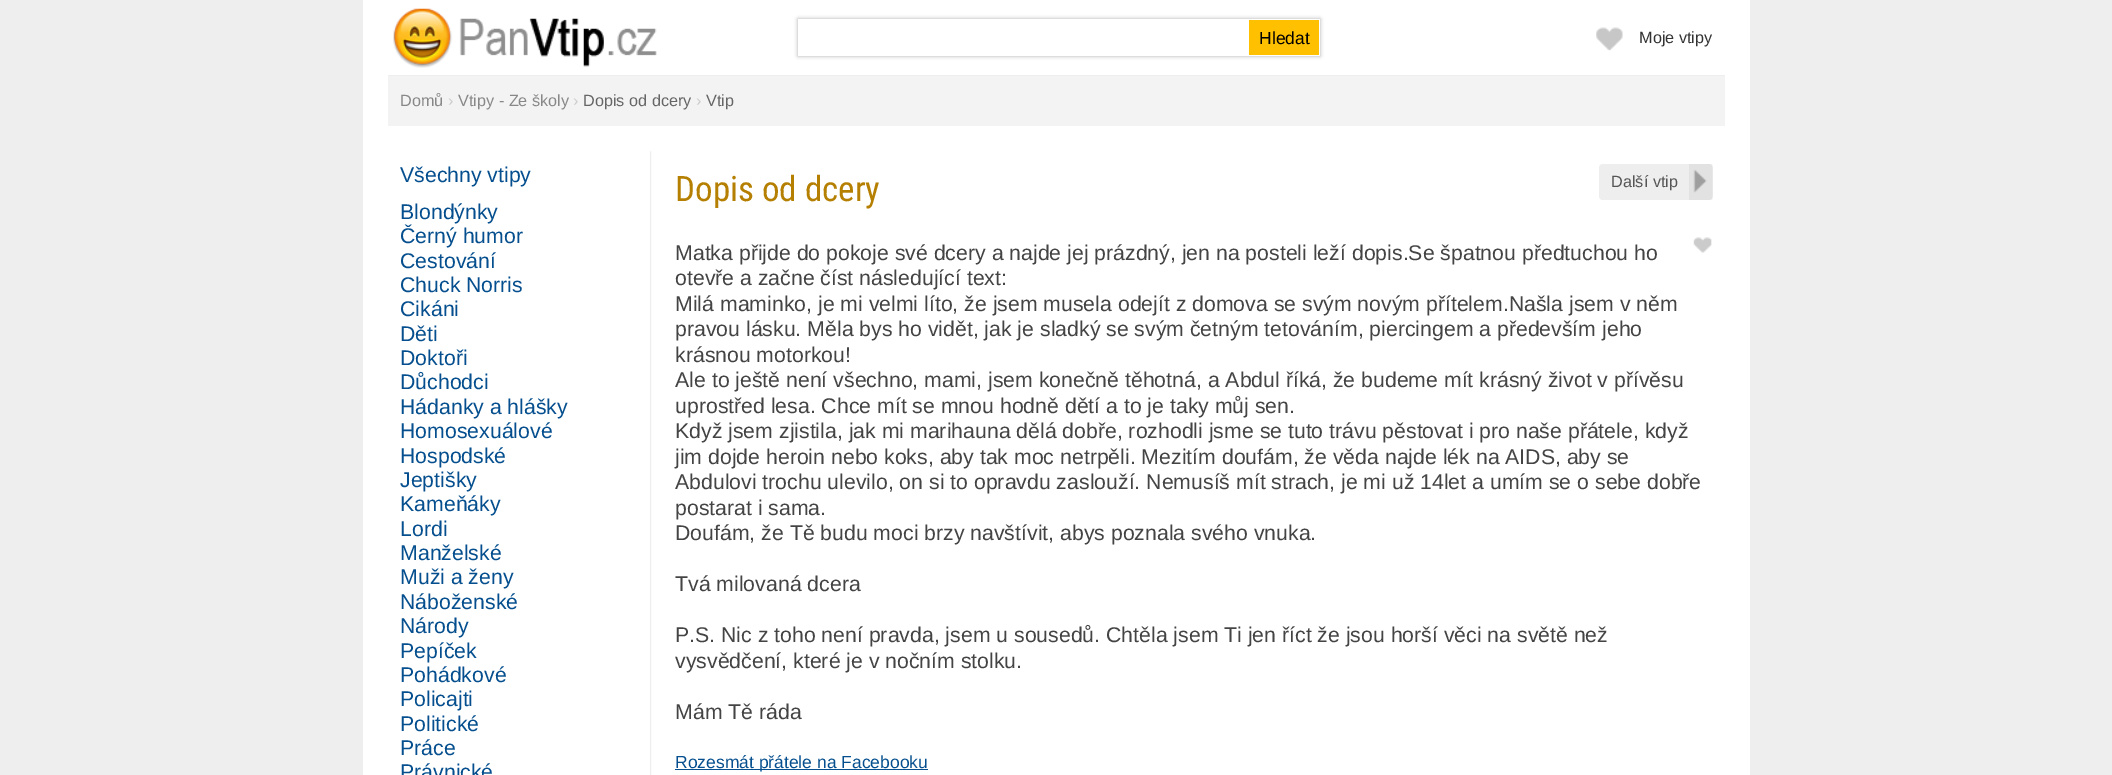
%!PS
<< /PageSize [2112 775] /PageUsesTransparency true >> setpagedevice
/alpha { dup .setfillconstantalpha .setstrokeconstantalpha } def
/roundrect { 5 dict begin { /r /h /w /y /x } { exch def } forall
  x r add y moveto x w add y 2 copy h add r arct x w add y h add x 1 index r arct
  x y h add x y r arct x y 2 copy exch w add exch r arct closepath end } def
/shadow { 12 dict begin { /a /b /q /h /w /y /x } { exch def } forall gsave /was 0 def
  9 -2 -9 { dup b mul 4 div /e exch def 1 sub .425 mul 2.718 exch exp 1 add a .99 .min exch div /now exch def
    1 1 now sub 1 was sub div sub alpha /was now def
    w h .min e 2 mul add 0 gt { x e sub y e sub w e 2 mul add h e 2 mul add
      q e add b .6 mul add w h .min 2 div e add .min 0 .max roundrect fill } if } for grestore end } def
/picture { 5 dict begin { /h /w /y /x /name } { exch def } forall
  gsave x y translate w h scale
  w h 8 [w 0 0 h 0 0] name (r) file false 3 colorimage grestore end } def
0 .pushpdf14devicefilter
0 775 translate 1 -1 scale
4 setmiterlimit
0.933 setgray
0 0 2112 775 rectfill
1 setgray
363 0 1387 775 rectfill
0.933 setgray
388 75 1337 1 rectfill
(img1.rgb) 393 8 264 60 picture
gsave
newpath 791 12 moveto 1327 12 lineto 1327 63 lineto 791 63 lineto closepath 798 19 moveto 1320 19 lineto 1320 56 lineto 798 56 lineto closepath eoclip newpath
0.667 setgray
798 19 522 37 0 2 1 shadow
grestore
1 0.753 0 setrgbcolor
1249 20 70 35 rectfill
/LiberationSans-Regular [17.5 0 0 -17.5 0 0] selectfont
0 setgray
1259 44 moveto (Hledat) show
(img2.rgb) 1596 27 27 24 picture
/LiberationSans-Regular [16.25 0 0 -16.25 0 0] selectfont
0.2 setgray
1639 43 moveto (Moje vtipy) show
0.953 setgray
388 76 1337 50 rectfill
0.533 setgray
400 106 moveto (Domů) show
0.8 setgray
448 106 moveto (›) show
0.533 setgray
458 106 moveto (Vtipy - Ze školy) show
0.8 setgray
573 106 moveto (›) show
0.4 setgray
583 106 moveto (Dopis od dcery) show
0.8 setgray
696 106 moveto (›) show
0.4 setgray
706 106 moveto (Vtip) show
(img3.rgb) 650 151 2 624 picture
/LiberationSans-Regular [21.25 0 0 -21.25 0 0] selectfont
0.02 0.31 0.557 setrgbcolor
400 182 moveto (Všechny vtipy) show
400 219 moveto (Blondýnky) show
400 243 moveto (Černý humor) show
400 268 moveto (Cestování) show
400 292 moveto (Chuck Norris) show
400 316 moveto (Cikáni) show
400 341 moveto (Děti) show
400 365 moveto (Doktoři) show
400 389 moveto (Důchodci) show
400 414 moveto (Hádanky a hlášky) show
400 438 moveto (Homosexuálové) show
400 463 moveto (Hospodské) show
400 487 moveto (Jeptišky) show
400 511 moveto (Kameňáky) show
400 536 moveto (Lordi) show
400 560 moveto (Manželské) show
400 584 moveto (Muži a ženy) show
400 609 moveto (Náboženské) show
400 633 moveto (Národy) show
400 658 moveto (Pepíček) show
400 682 moveto (Pohádkové) show
400 706 moveto (Policajti) show
400 731 moveto (Politické) show
400 755 moveto (Práce) show
400 779 moveto (Právnické) show
/RobotoCondensed-Regular [35 0 0 -35 0 0] selectfont
0.71 0.502 0.004 setrgbcolor
675 201 moveto (Dopis od dcery) show
0.933 setgray
1599 164 114 36 4 roundrect fill
(img4.rgb) 1689 164 24 36 picture
/LiberationSans-Regular [16.25 0 0 -16.25 0 0] selectfont
0.333 setgray
1611 187 moveto (Další vtip) show
/LiberationSans-Regular [21.25 0 0 -21.25 0 0] selectfont
0.267 setgray
675 260 moveto (Matka přijde do pokoje své dcery a najde jej prázdný, jen na posteli leží dopis.Se špatnou předtuchou ho) show
675 285 moveto (otevře a začne číst následující text:) show
675 311 moveto (Milá maminko, je mi velmi líto, že jsem musela odejít z domova se svým novým přítelem.Našla jsem v něm) show
675 336 moveto (pravou lásku. Měla bys ho vidět, jak je sladký se svým četným tetováním, piercingem a především jeho) show
675 362 moveto (krásnou motorkou!) show
675 387 moveto (Ale to ještě není všechno, mami, jsem konečně těhotná, a Abdul říká, že budeme mít krásný život v přívěsu) show
675 413 moveto (uprostřed lesa. Chce mít se mnou hodně dětí a to je taky můj sen.) show
675 438 moveto (Když jsem zjistila, jak mi marihauna dělá dobře, rozhodli jsme se tuto trávu pěstovat i pro naše přátele, když) show
675 464 moveto (jim dojde heroin nebo koks, aby tak moc netrpěli. Mezitím doufám, že věda najde lék na AIDS, aby se) show
675 489 moveto (Abdulovi trochu ulevilo, on si to opravdu zaslouží. Nemusíš mít strach, je mi už 14let a umím se o sebe dobře) show
675 515 moveto (postarat i sama.) show
675 540 moveto (Doufám, že Tě budu moci brzy navštívit, abys poznala svého vnuka.) show
675 591 moveto (Tvá milovaná dcera) show
675 642 moveto (P.S. Nic z toho není pravda, jsem u sousedů. Chtěla jsem Ti jen říct že jsou horší věci na světě než) show
675 668 moveto (vysvědčení, které je v nočním stolku.) show
675 719 moveto (Mám Tě ráda) show
(img5.rgb) 1693 237 19 16 picture
0.02 0.31 0.557 setrgbcolor
675 769 253 1 rectfill
/LiberationSans-Regular [17.5 0 0 -17.5 0 0] selectfont
675 768 moveto (Rozesmát přátele na Facebooku) show
.poppdf14devicefilter showpage
